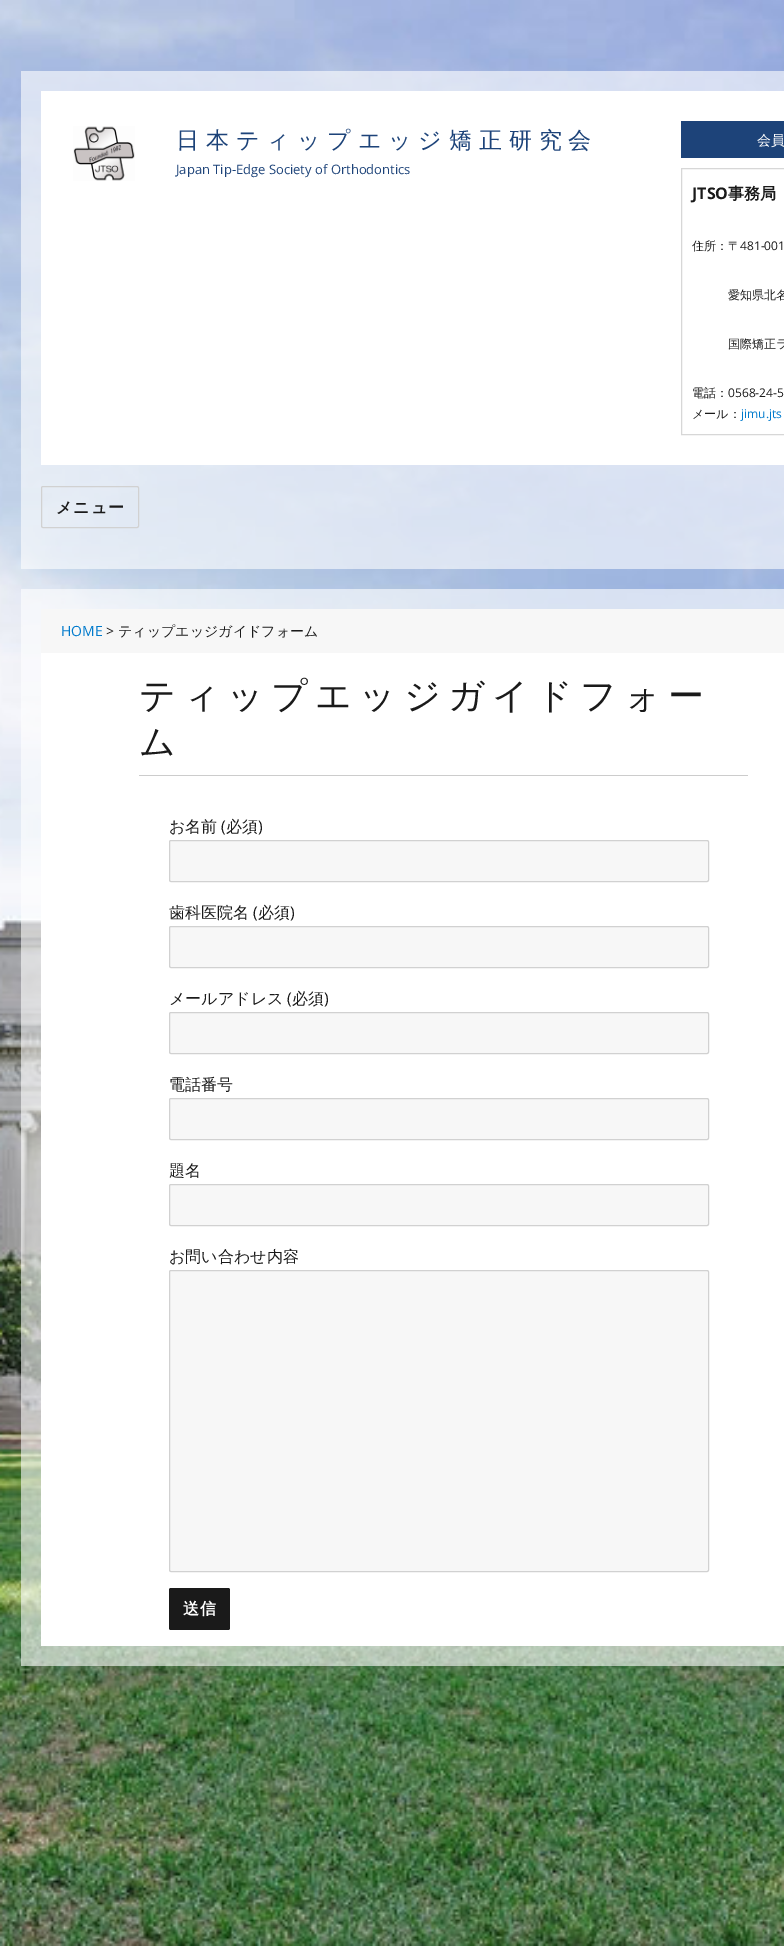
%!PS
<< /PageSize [784 1946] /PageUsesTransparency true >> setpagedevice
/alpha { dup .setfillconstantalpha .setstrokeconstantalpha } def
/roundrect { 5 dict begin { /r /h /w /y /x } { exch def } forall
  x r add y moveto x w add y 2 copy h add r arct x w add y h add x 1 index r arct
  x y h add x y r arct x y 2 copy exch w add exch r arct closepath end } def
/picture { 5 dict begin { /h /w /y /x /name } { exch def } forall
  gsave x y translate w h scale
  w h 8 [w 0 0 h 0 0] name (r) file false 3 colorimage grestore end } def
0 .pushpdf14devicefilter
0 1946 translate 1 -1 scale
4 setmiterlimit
1 setgray
0 0 784 1946 rectfill
(img1.rgb) 0 0 784 1946 picture
0.6 alpha
21 71 763 498 rectfill
1 alpha
41 91 743 374 rectfill
(img2.rgb) 73 126 62 55 picture
/WenQuanYiZenHei-Medium [23 0 0 -23 0 0] selectfont
0.114 0.263 0.475 setrgbcolor
176 148 moveto 6.9 0 (日本ティップエッジ矯正研究会) ashow
/OpenSans-Regular [13 0 0 -13 0 0] selectfont
176 174 moveto (Japan Tip-Edge Society of Orthodontics) show
681 121 103 37 rectfill
/WenQuanYiZenHei-Medium [14 0 0 -14 0 0] selectfont
1 setgray
757 145 moveto (会員) show
0.843 setgray
681.5 168.5 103 266 rectstroke
/OpenSans-Bold [16 0 0 -16 0 0] selectfont
0.102 setgray
692 199 moveto (JTSO) show
/WenQuanYiZenHei-Bold [16 0 0 -16 0 0] selectfont
728 199 moveto (事務局) show
/WenQuanYiZenHei-Medium [12 0 0 -12 0 0] selectfont
692 250 moveto (住所：〒) show
/OpenSans-Regular [12 0 0 -12 0 0] selectfont
740 250 moveto (481-001) show
/WenQuanYiZenHei-Medium [12 0 0 -12 0 0] selectfont
728 299 moveto (愛知県北名) show
728 348 moveto (国際矯正ラ) show
692 397 moveto (電話：) show
/OpenSans-Regular [12 0 0 -12 0 0] selectfont
728 397 moveto (0568-24-5) show
/WenQuanYiZenHei-Medium [12 0 0 -12 0 0] selectfont
692 418 moveto (メール：) show
/OpenSans-Regular [12 0 0 -12 0 0] selectfont
0 0.478 0.8 setrgbcolor
741 418 moveto (jimu.jts) show
0.82 setgray
41.5 486.5 97 41 1.5 roundrect stroke
/WenQuanYiZenHei-Bold [16 0 0 -16 0 0] selectfont
0.102 setgray
56 513 moveto 1 0 (メニュー) ashow
0.6 alpha
1 setgray
21 589 763 1077 rectfill
1 alpha
0.969 setgray
41 609 743 44 rectfill
/OpenSans-Regular [14 0 0 -14 0 0] selectfont
0 0.478 0.8 setrgbcolor
61 636 moveto (HOME) show
0.102 setgray
106 636 moveto (>) show
/WenQuanYiZenHei-Medium [14 0 0 -14 0 0] selectfont
118 636 moveto (ティップエッジガイドフォーム) show
1 setgray
41 653 743 993 rectfill
0.8 setgray
139 775 609 1 rectfill
/WenQuanYiZenHei-Medium [36 0 0 -36 0 0] selectfont
0.102 setgray
139 708 moveto 7.25 0 (ティップエッジガイドフォー) ashow
139 754 moveto 7.25 0 (ム) ashow
/WenQuanYiZenHei-Medium [16 0 0 -16 0 0] selectfont
169 832 moveto (お名前) show
/OpenSans-Regular [16 0 0 -16 0 0] selectfont
221 832 moveto (\() show
/WenQuanYiZenHei-Medium [16 0 0 -16 0 0] selectfont
226 832 moveto (必須) show
/OpenSans-Regular [16 0 0 -16 0 0] selectfont
258 832 moveto (\)) show
0.969 setgray
169.5 840.5 539 41 1.5 roundrect gsave fill grestore
0.82 setgray
stroke
/WenQuanYiZenHei-Medium [16 0 0 -16 0 0] selectfont
0.102 setgray
169 918 moveto (歯科医院名) show
/OpenSans-Regular [16 0 0 -16 0 0] selectfont
253 918 moveto (\() show
/WenQuanYiZenHei-Medium [16 0 0 -16 0 0] selectfont
258 918 moveto (必須) show
/OpenSans-Regular [16 0 0 -16 0 0] selectfont
290 918 moveto (\)) show
0.969 setgray
169.5 926.5 539 41 1.5 roundrect gsave fill grestore
0.82 setgray
stroke
/WenQuanYiZenHei-Medium [16 0 0 -16 0 0] selectfont
0.102 setgray
169 1004 moveto (メールアドレス) show
/OpenSans-Regular [16 0 0 -16 0 0] selectfont
287 1004 moveto (\() show
/WenQuanYiZenHei-Medium [16 0 0 -16 0 0] selectfont
292 1004 moveto (必須) show
/OpenSans-Regular [16 0 0 -16 0 0] selectfont
324 1004 moveto (\)) show
0.969 setgray
169.5 1012.5 539 41 1.5 roundrect gsave fill grestore
0.82 setgray
stroke
/WenQuanYiZenHei-Medium [16 0 0 -16 0 0] selectfont
0.102 setgray
169 1090 moveto (電話番号) show
0.969 setgray
169.5 1098.5 539 41 1.5 roundrect gsave fill grestore
0.82 setgray
stroke
0.102 setgray
169 1176 moveto (題名) show
0.969 setgray
169.5 1184.5 539 41 1.5 roundrect gsave fill grestore
0.82 setgray
stroke
0.102 setgray
169 1262 moveto (お問い合わせ内容) show
0.969 setgray
169.5 1270.5 539 301 1.5 roundrect gsave fill grestore
0.82 setgray
stroke
0.102 setgray
169 1588 61 42 2 roundrect fill
/WenQuanYiZenHei-Bold [16 0 0 -16 0 0] selectfont
1 setgray
183 1614 moveto 1 0 (送信) ashow
.poppdf14devicefilter showpage
